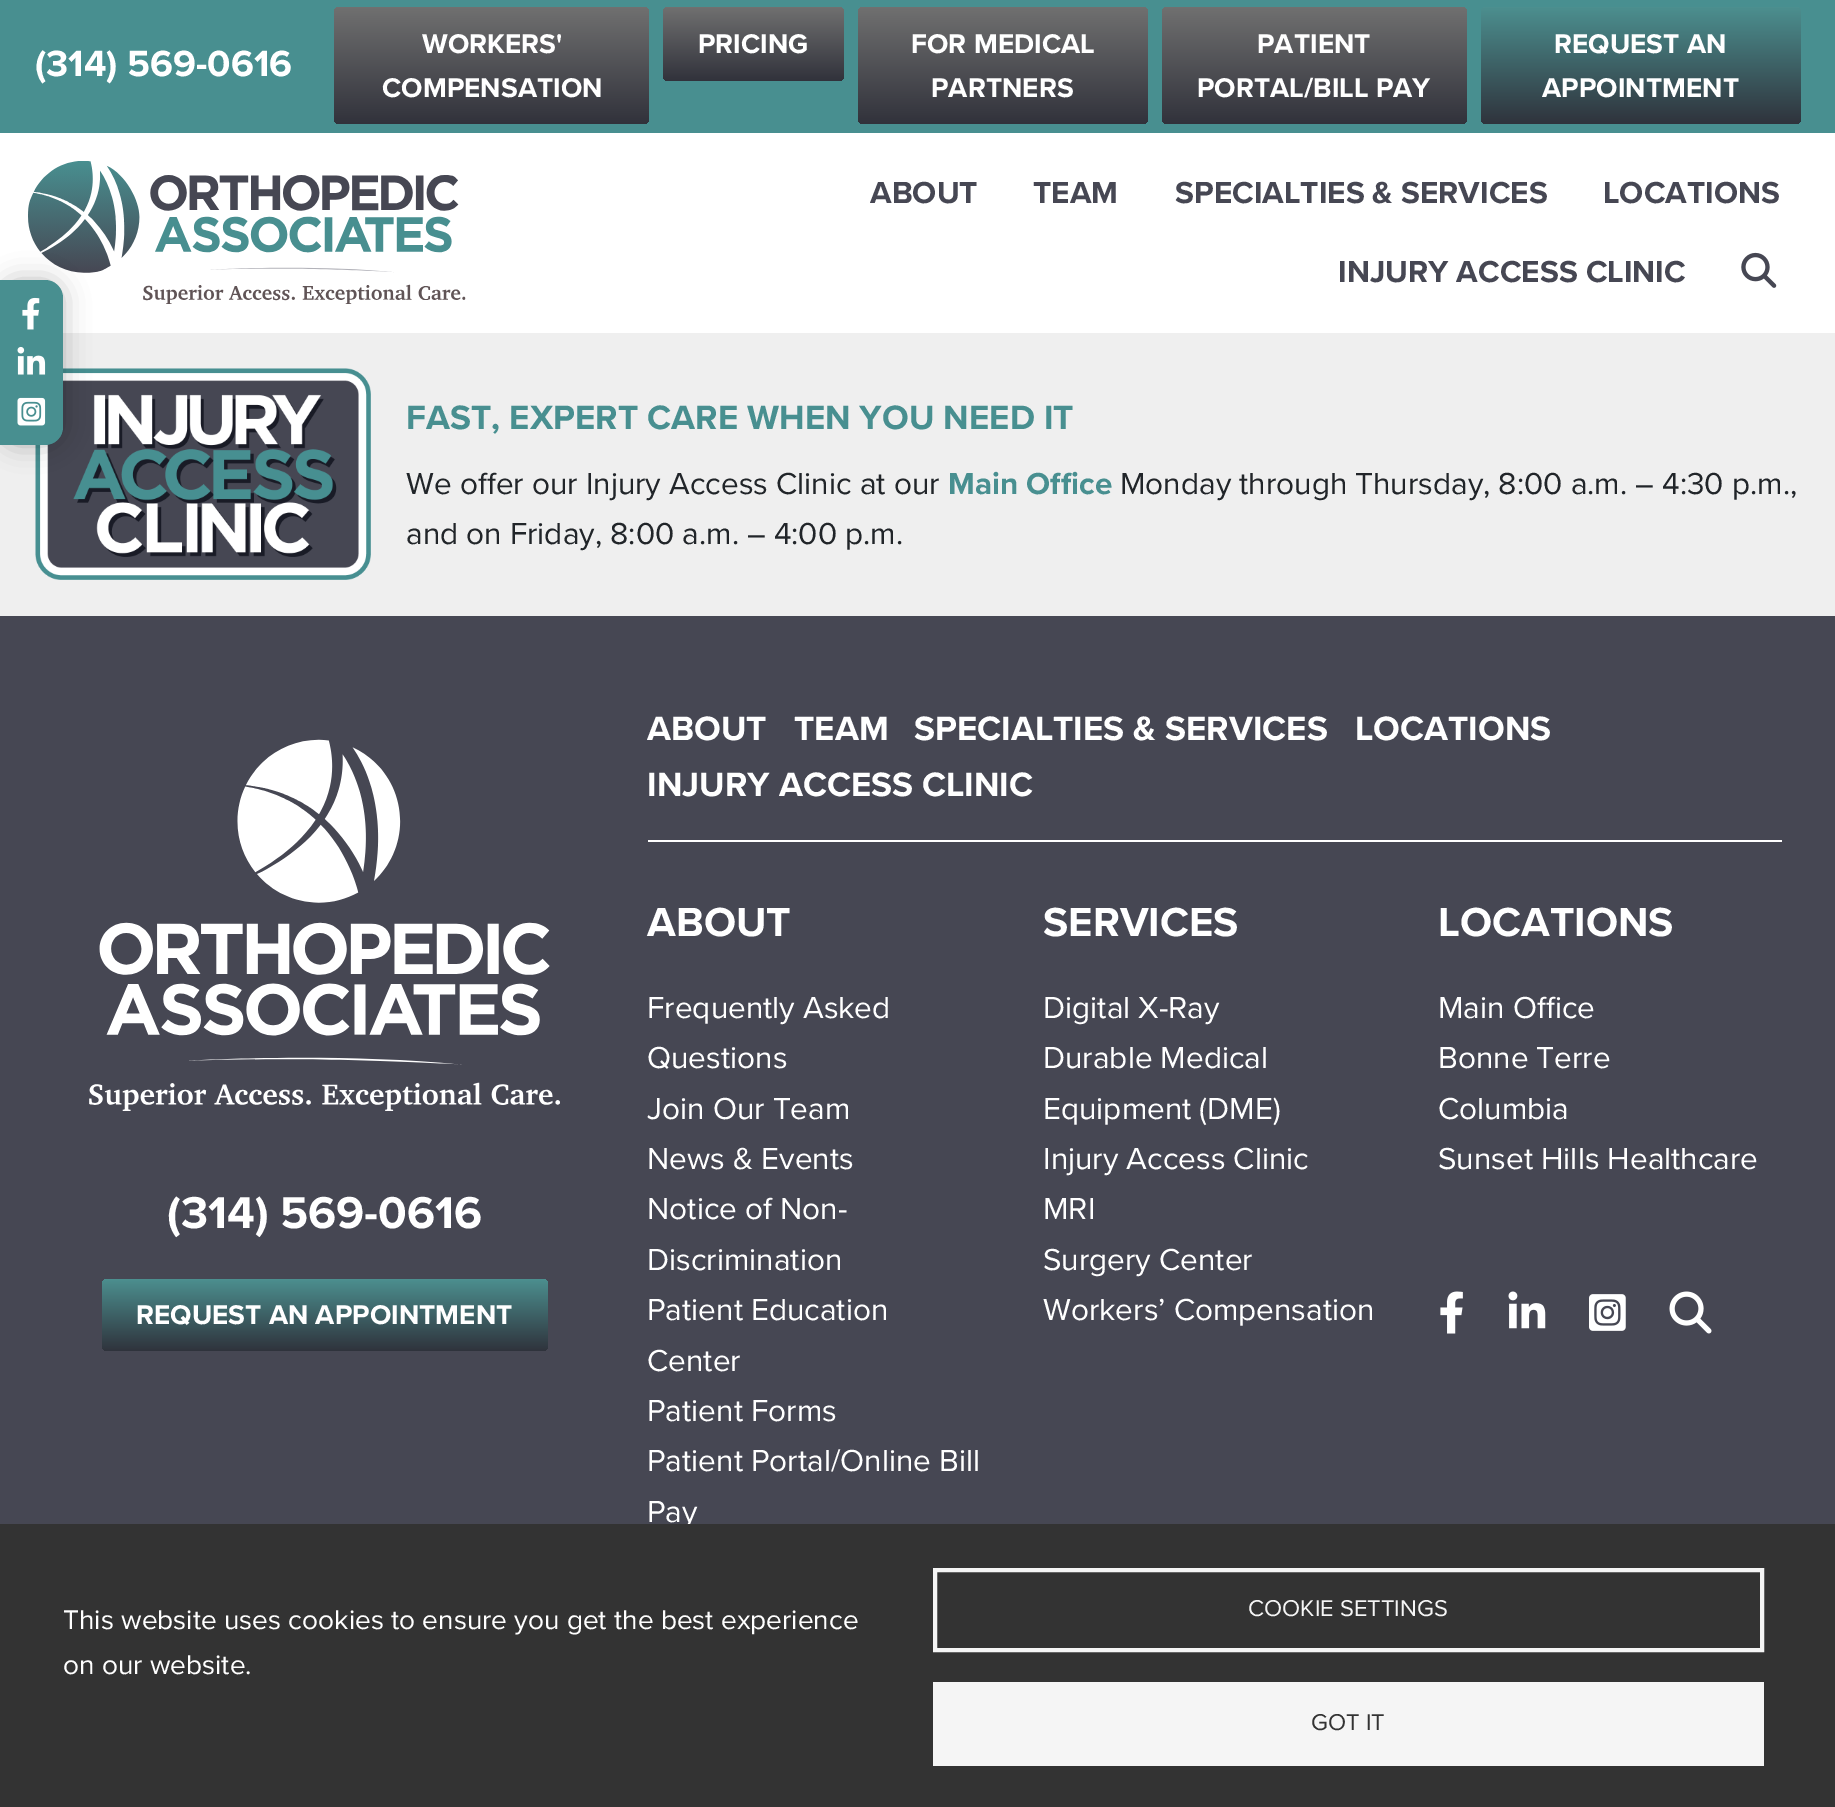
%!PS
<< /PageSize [1835 1807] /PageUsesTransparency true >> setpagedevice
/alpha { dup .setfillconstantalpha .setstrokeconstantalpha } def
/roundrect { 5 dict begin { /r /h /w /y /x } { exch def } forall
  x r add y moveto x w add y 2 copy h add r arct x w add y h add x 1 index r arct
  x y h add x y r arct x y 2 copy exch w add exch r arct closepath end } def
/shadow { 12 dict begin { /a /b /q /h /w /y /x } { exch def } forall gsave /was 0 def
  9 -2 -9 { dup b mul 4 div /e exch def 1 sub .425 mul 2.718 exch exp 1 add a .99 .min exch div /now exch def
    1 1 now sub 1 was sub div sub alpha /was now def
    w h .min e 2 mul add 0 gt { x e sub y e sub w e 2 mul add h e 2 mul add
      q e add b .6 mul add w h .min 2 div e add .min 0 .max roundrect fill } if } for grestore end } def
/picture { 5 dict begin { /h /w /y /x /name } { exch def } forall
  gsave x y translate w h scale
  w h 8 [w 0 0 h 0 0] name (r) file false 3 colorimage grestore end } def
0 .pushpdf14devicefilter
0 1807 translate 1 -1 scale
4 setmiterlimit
1 setgray
0 0 1835 1807 rectfill
0.282 0.561 0.565 setrgbcolor
0 0 1835 133 rectfill
/ProximaNova-Bold [37.75 0 0 -37.75 0 0] selectfont
1 setgray
35 76 moveto (\(314\) 569-0616) show
gsave 334 7 315 117 5 roundrect clip newpath
<< /ShadingType 2 /ColorSpace /DeviceRGB /Coords [492 124 492 7] /Extend [true true] /Function << /FunctionType 2 /Domain [0 1] /C0 [0.192 0.196 0.231] /C1 [0.439 0.439 0.439] /N 1 >> >> shfill grestore
/ProximaNova-Bold [28 0 0 -28 0 0] selectfont
422 53 moveto (WORKERS') show
382 97 moveto (COMPENSATION) show
gsave 663 7 181 74 5 roundrect clip newpath
<< /ShadingType 2 /ColorSpace /DeviceRGB /Coords [753 81 753 7] /Extend [true true] /Function << /FunctionType 2 /Domain [0 1] /C0 [0.192 0.196 0.231] /C1 [0.439 0.439 0.439] /N 1 >> >> shfill grestore
698 53 moveto (PRICING) show
gsave 858 7 290 117 5 roundrect clip newpath
<< /ShadingType 2 /ColorSpace /DeviceRGB /Coords [1003 124 1003 7] /Extend [true true] /Function << /FunctionType 2 /Domain [0 1] /C0 [0.192 0.196 0.231] /C1 [0.439 0.439 0.439] /N 1 >> >> shfill grestore
911 53 moveto (FOR MEDICAL) show
931 97 moveto (PARTNERS) show
gsave 1162 7 305 117 5 roundrect clip newpath
<< /ShadingType 2 /ColorSpace /DeviceRGB /Coords [1314 124 1314 7] /Extend [true true] /Function << /FunctionType 2 /Domain [0 1] /C0 [0.192 0.196 0.231] /C1 [0.439 0.439 0.439] /N 1 >> >> shfill grestore
1257 53 moveto (PATIENT) show
1197 97 moveto (PORTAL/BILL PAY) show
gsave 1481 7 320 117 5 roundrect clip newpath
<< /ShadingType 2 /ColorSpace /DeviceRGB /Coords [1641 124 1641 7] /Extend [true true] /Function << /FunctionType 2 /Domain [0 1] /C0 [0.184 0.2 0.235] /C1 [0.298 0.561 0.561] /N 1 >> >> shfill grestore
1554 53 moveto (REQUEST AN) show
1542 97 moveto (APPOINTMENT) show
(img1.rgb) 28 161 438 143 picture
/ProximaNova-Bold [31.5 0 0 -31.5 0 0] selectfont
0.275 0.278 0.325 setrgbcolor
870 203 moveto (ABOUT) show
1033 203 moveto (TEAM) show
1175 203 moveto (SPECIALTIES & SERVICES) show
1603 203 moveto (LOCATIONS) show
1338 282 moveto (INJURY ACCESS CLINIC) show
(img2.rgb) 1741 252 36 36 picture
0.937 setgray
0 333 1835 283 rectfill
(img6.rgb) 35 368 336 212 picture
0 setgray
0 280 63 165 18 13 0.25 shadow
0.282 0.561 0.565 setrgbcolor
newpath 0 280 moveto 45 280 lineto 55 280 63 288 63 298 curveto 63 427 lineto 63 437 55 445 45 445 curveto 0 445 lineto closepath fill
(img3.rgb) 22 297 18 33 picture
(img4.rgb) 17 346 29 29 picture
(img5.rgb) 17 397 29 29 picture
/ProximaNova-Bold [35 0 0 -35 0 0] selectfont
406 429 moveto (FAST, EXPERT CARE WHEN YOU NEED IT) show
/ProximaNova-Regular [31.5 0 0 -31.5 0 0] selectfont
0.129 0.145 0.161 setrgbcolor
406 494 moveto (We offer our Injury Access Clinic at our) show
/ProximaNova-Bold [31.5 0 0 -31.5 0 0] selectfont
0.282 0.561 0.565 setrgbcolor
948 494 moveto (Main Office) show
/ProximaNova-Regular [31.5 0 0 -31.5 0 0] selectfont
0.129 0.145 0.161 setrgbcolor
1120 494 moveto (Monday through Thursday, 8:00 a.m. – 4:30 p.m.,) show
406 544 moveto (and on Friday, 8:00 a.m. – 4:00 p.m.) show
0.275 0.278 0.325 setrgbcolor
0 616 1835 908 rectfill
(img7.rgb) 89 739 471 372 picture
/ProximaNova-Bold [46.25 0 0 -46.25 0 0] selectfont
1 setgray
167 1228 moveto (\(314\) 569-0616) show
gsave 102 1279 446 72 5 roundrect clip newpath
<< /ShadingType 2 /ColorSpace /DeviceRGB /Coords [325 1351 325 1279] /Extend [true true] /Function << /FunctionType 2 /Domain [0 1] /C0 [0.184 0.2 0.235] /C1 [0.298 0.561 0.561] /N 1 >> >> shfill grestore
/ProximaNova-Bold [28 0 0 -28 0 0] selectfont
136 1324 moveto (REQUEST AN APPOINTMENT) show
648 840 1134 2 rectfill
/ProximaNova-Bold [35 0 0 -35 0 0] selectfont
647 740 moveto (ABOUT) show
794 740 moveto (TEAM) show
914 740 moveto (SPECIALTIES & SERVICES) show
1355 740 moveto (LOCATIONS) show
647 796 moveto (INJURY ACCESS CLINIC) show
/ProximaNova-Bold [42 0 0 -42 0 0] selectfont
647 936 moveto (ABOUT) show
/ProximaNova-Regular [31.5 0 0 -31.5 0 0] selectfont
647 1018 moveto (Frequently Asked) show
647 1068 moveto (Questions) show
647 1119 moveto (Join Our Team) show
647 1169 moveto (News & Events) show
647 1219 moveto (Notice of Non-) show
647 1270 moveto (Discrimination) show
647 1320 moveto (Patient Education) show
647 1371 moveto (Center) show
647 1421 moveto (Patient Forms) show
647 1471 moveto (Patient Portal/Online Bill) show
647 1522 moveto (Pay) show
/ProximaNova-Bold [42 0 0 -42 0 0] selectfont
1043 936 moveto (SERVICES) show
/ProximaNova-Regular [31.5 0 0 -31.5 0 0] selectfont
1043 1018 moveto (Digital X-Ray) show
1043 1068 moveto (Durable Medical) show
1043 1119 moveto (Equipment \(DME\)) show
1043 1169 moveto (Injury Access Clinic) show
1043 1219 moveto (MRI) show
1043 1270 moveto (Surgery Center) show
1043 1320 moveto (Workers’ Compensation) show
/ProximaNova-Bold [42 0 0 -42 0 0] selectfont
1438 936 moveto (LOCATIONS) show
/ProximaNova-Regular [31.5 0 0 -31.5 0 0] selectfont
1438 1018 moveto (Main Office) show
1438 1068 moveto (Bonne Terre) show
1438 1119 moveto (Columbia) show
1438 1169 moveto (Sunset Hills Healthcare) show
(img8.rgb) 1440 1291 23 43 picture
(img9.rgb) 1508 1291 38 38 picture
(img10.rgb) 1589 1294 37 37 picture
(img11.rgb) 1669 1291 43 43 picture
0.2 setgray
0 1524 1835 283 rectfill
/ProximaNova-Regular [28 0 0 -28 0 0] selectfont
1 setgray
63 1629 moveto (This website uses cookies to ensure you get the best experience) show
63 1674 moveto (on our website.) show
0.961 setgray
4 setlinewidth
935 1570 827 80 rectstroke
/ProximaNova-Regular [23.75 0 0 -23.75 0 0] selectfont
1248 1616 moveto (COOKIE SETTINGS) show
933 1682 831 84 rectfill
0.2 setgray
1311 1730 moveto (GOT IT) show
.poppdf14devicefilter showpage
